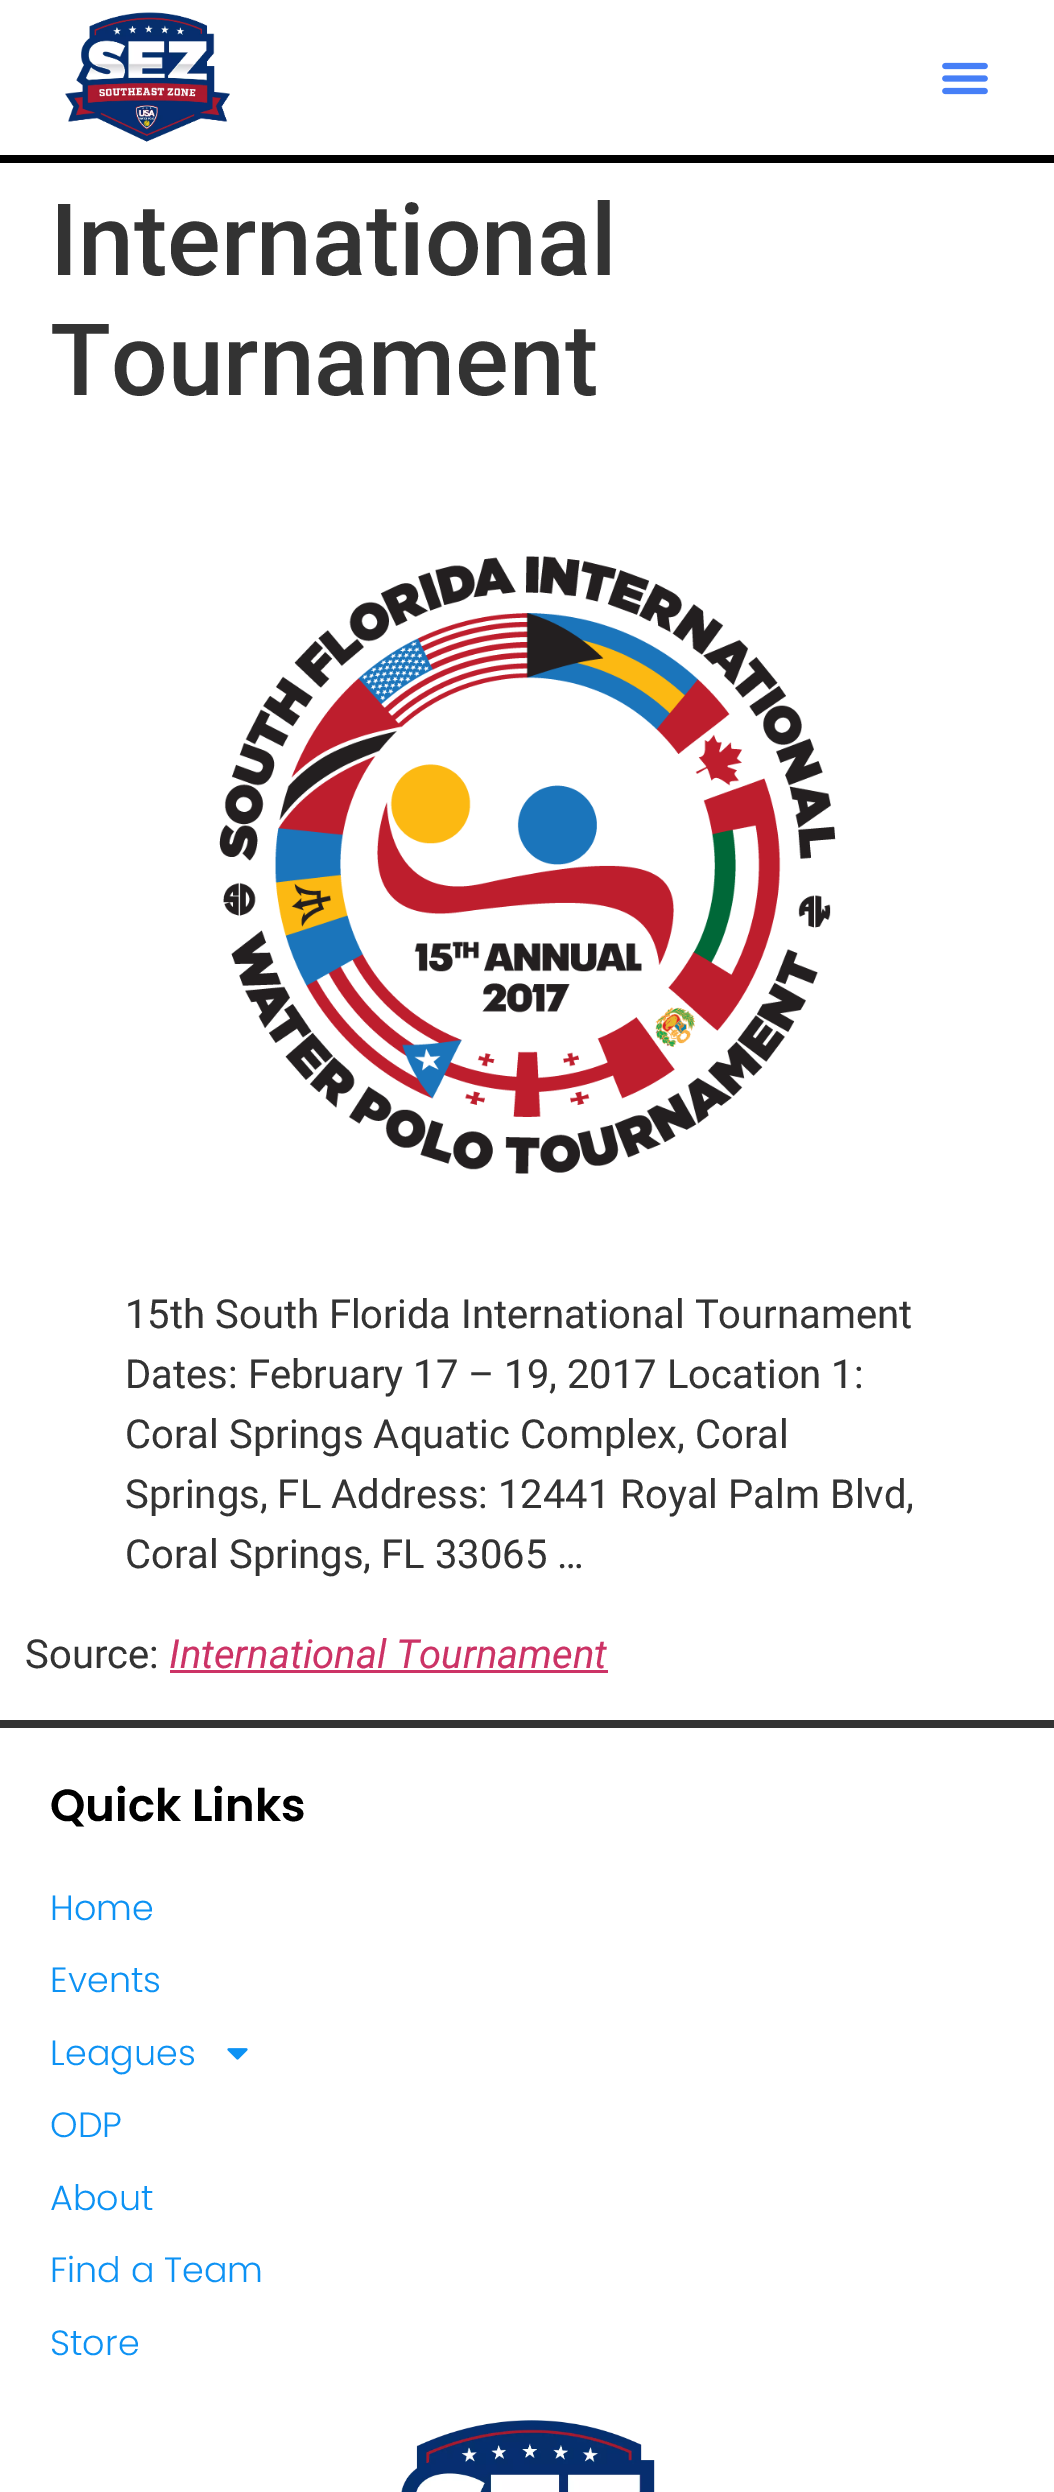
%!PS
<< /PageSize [1054 2492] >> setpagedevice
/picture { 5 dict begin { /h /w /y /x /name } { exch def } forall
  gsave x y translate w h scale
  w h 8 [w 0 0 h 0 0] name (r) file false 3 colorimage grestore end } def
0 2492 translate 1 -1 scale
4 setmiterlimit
1 setgray
0 0 1054 2492 rectfill
0 setgray
0 155 1054 8 rectfill
(img1.rgb) 65 12 165 130 picture
(img2.rgb) 942 62 46 33 picture
/Roboto-Medium [100 0 0 -100 0 0] selectfont
0.2 setgray
50 275 moveto (International) show
50 395 moveto (Tournament) show
(img3.rgb) 219 556 617 618 picture
/Roboto-Regular [40 0 0 -40 0 0] selectfont
125 1328 moveto (15th South Florida International Tournament) show
125 1388 moveto (Dates: February 17 – 19, 2017 Location 1:) show
125 1448 moveto (Coral Springs Aquatic Complex, Coral) show
125 1508 moveto (Springs, FL Address: 12441 Royal Palm Blvd,) show
125 1568 moveto (Coral Springs, FL 33065 …) show
25 1668 moveto (Source:) show
/Roboto-Italic [40 0 0 -40 0 0] selectfont
0.8 0.2 0.4 setrgbcolor
169 1668 moveto (International Tournament) show
170 1670 438 3 rectfill
0.2 setgray
0 1720 1054 8 rectfill
/Poppins-SemiBold [45 0 0 -45 0 0] selectfont
0 setgray
50 1821 moveto (Quick Links) show
/Poppins-Light [35 0 0 -35 0 0] selectfont
0.051 0.573 0.957 setrgbcolor
50 1920 moveto (Home) show
50 1992 moveto (Events) show
50 2065 moveto (Leagues) show
(img4.rgb) 227 2048 21 12 picture
50 2137 moveto (ODP) show
50 2210 moveto (About) show
50 2282 moveto (Find a Team) show
50 2355 moveto (Store) show
(img5.rgb) 401 2420 254 72 picture
showpage
